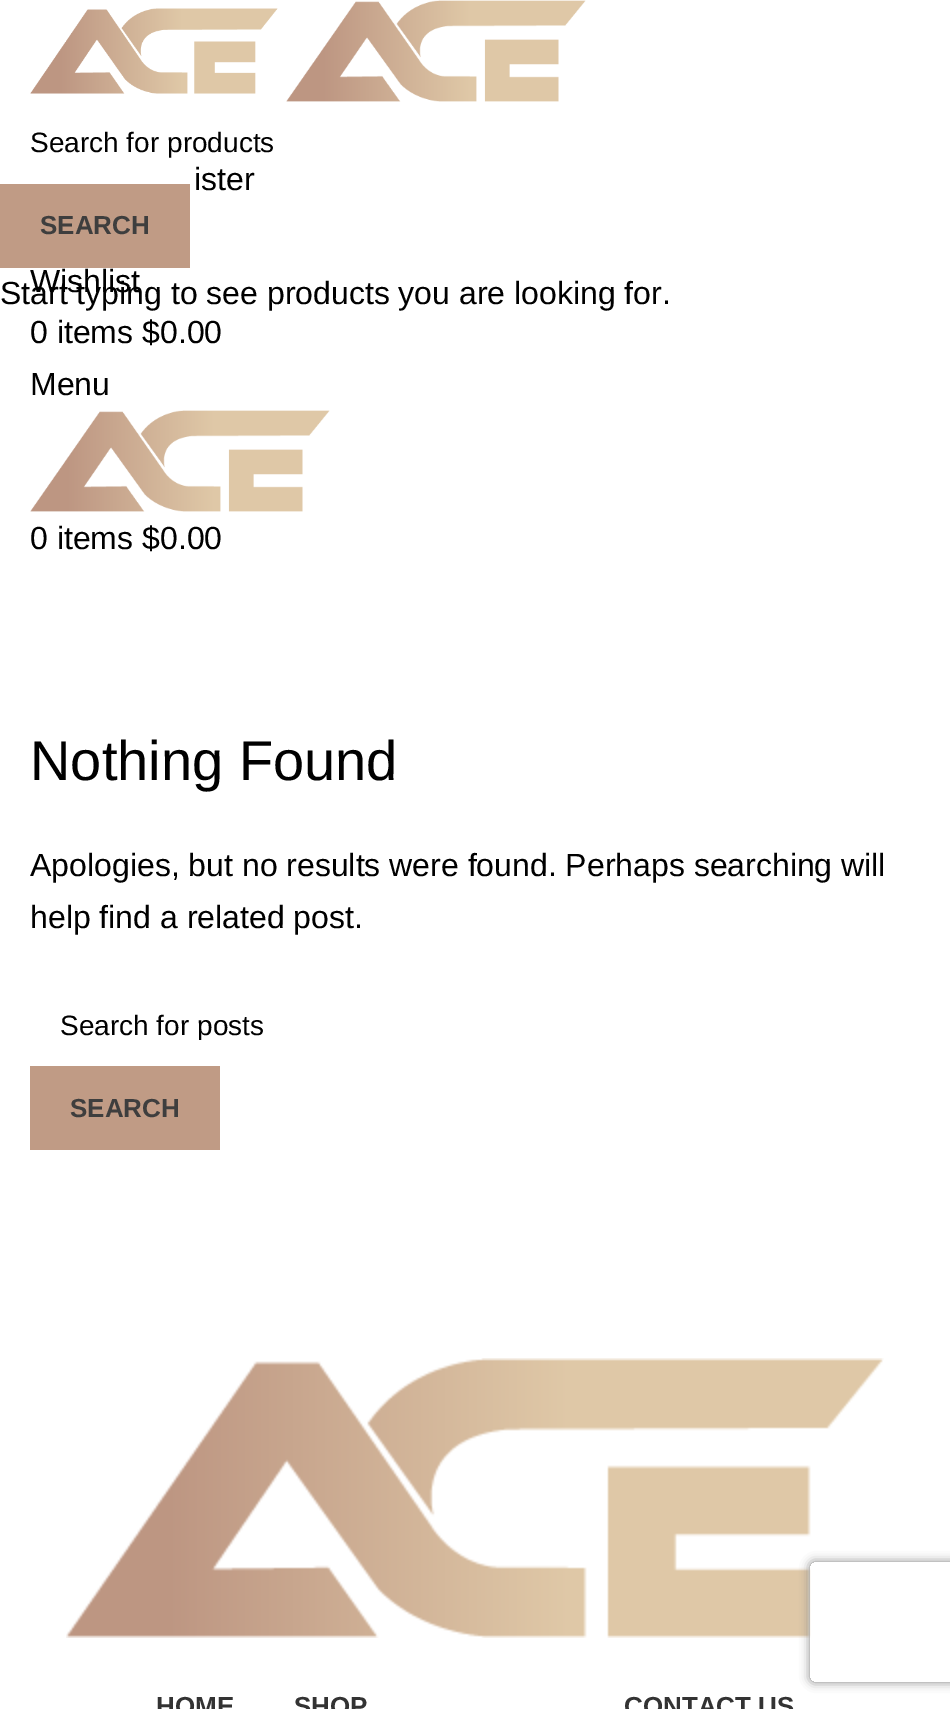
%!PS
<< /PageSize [950 1709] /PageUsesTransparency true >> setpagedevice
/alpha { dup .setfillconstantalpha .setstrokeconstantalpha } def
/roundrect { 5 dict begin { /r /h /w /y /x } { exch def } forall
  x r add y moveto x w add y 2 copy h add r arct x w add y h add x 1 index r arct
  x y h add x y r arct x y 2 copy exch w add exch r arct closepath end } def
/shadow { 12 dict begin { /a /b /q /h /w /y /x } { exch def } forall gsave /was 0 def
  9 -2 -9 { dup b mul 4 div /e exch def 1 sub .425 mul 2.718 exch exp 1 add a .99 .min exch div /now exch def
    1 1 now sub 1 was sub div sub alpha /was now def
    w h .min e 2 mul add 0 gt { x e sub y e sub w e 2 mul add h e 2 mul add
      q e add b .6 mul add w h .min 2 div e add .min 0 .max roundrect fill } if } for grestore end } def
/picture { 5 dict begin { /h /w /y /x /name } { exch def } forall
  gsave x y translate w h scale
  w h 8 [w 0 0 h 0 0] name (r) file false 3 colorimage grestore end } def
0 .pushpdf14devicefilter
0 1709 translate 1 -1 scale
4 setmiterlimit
1 setgray
0 0 950 1709 rectfill
/LiberationSans-Regular [28 0 0 -28 0 0] selectfont
0 setgray
30 152 moveto (Search for products) show
0.753 0.608 0.522 setrgbcolor
0 184 190 84 rectfill
/LiberationSans-Bold [26 0 0 -26 0 0] selectfont
0.243 setgray
40 234 moveto (SEARCH) show
/LiberationSans-Regular [32 0 0 -32 0 0] selectfont
0 setgray
30 292 moveto (Wishlist) show
0 304 moveto (Start typing to see products you are looking for.) show
(img1.rgb) 30 8 248 86 picture
(img2.rgb) 286 0 300 102 picture
194 190 moveto (ister) show
30 343 moveto (0 items $0.00) show
30 395 moveto (Menu) show
(img2.rgb) 30 410 300 102 picture
30 549 moveto (0 items $0.00) show
/LiberationSans-Regular [56 0 0 -56 0 0] selectfont
30 780 moveto (Nothing Found) show
/LiberationSans-Regular [32 0 0 -32 0 0] selectfont
30 876 moveto (Apologies, but no results were found. Perhaps searching will) show
30 928 moveto (help find a related post.) show
gsave
60 1008 830 32 rectclip
/LiberationSans-Regular [28 0 0 -28 0 0] selectfont
60 1035 moveto (Search for posts) show
grestore
0.753 0.608 0.522 setrgbcolor
30 1066 190 84 rectfill
/LiberationSans-Bold [26 0 0 -26 0 0] selectfont
0.243 setgray
70 1117 moveto (SEARCH) show
(img3.rgb) 66 1358 818 280 picture
0.2 setgray
156 1715 moveto (HOME) show
294 1715 moveto (SHOP) show
624 1715 moveto (CONTACT US) show
gsave
newpath 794 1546 moveto 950 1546 lineto 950 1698 lineto 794 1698 lineto closepath 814 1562 moveto 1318 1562 lineto 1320 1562 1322 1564 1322 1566 curveto 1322 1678 lineto 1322 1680 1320 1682 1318 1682 curveto 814 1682 lineto 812 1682 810 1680 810 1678 curveto 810 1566 lineto 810 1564 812 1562 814 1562 curveto closepath eoclip newpath
0.502 setgray
810 1562 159 120 4 5 1 shadow
grestore
.poppdf14devicefilter showpage
